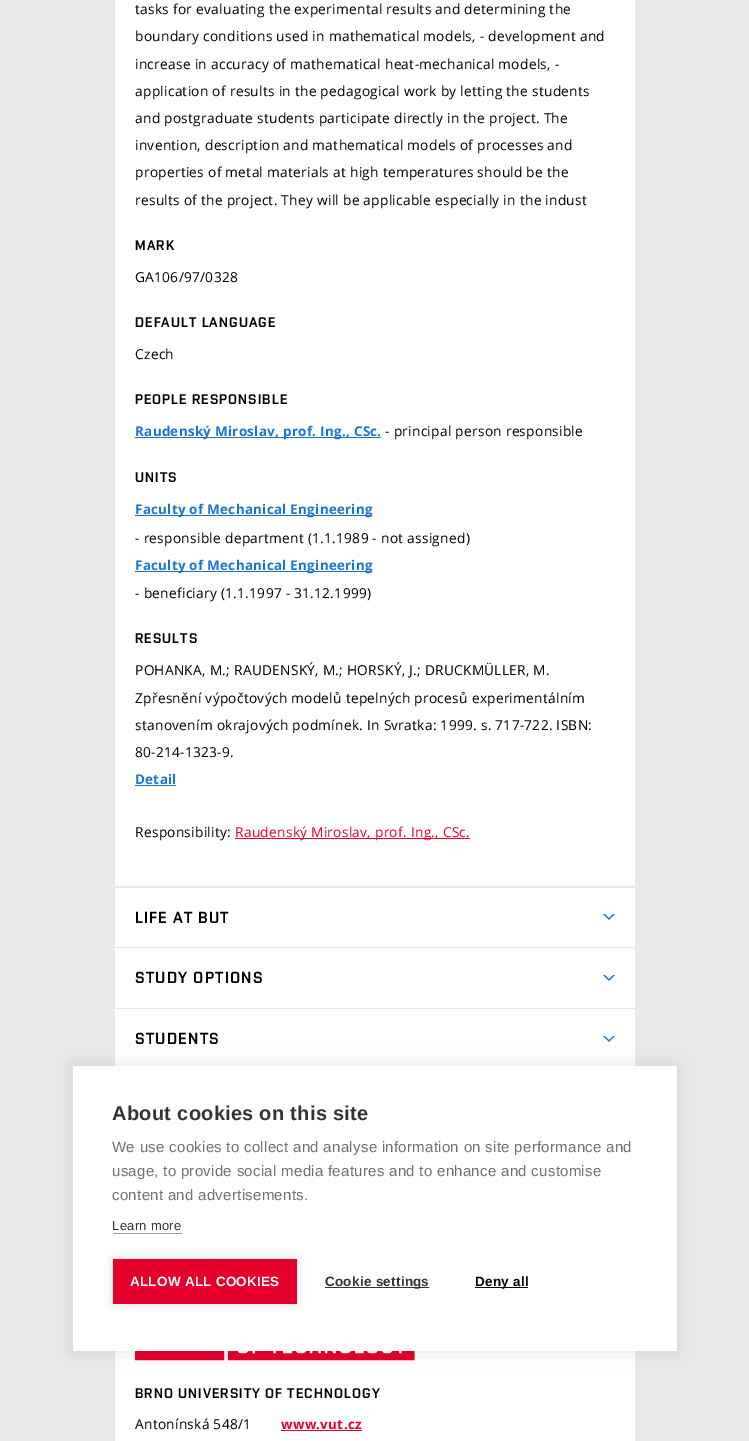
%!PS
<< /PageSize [749 1441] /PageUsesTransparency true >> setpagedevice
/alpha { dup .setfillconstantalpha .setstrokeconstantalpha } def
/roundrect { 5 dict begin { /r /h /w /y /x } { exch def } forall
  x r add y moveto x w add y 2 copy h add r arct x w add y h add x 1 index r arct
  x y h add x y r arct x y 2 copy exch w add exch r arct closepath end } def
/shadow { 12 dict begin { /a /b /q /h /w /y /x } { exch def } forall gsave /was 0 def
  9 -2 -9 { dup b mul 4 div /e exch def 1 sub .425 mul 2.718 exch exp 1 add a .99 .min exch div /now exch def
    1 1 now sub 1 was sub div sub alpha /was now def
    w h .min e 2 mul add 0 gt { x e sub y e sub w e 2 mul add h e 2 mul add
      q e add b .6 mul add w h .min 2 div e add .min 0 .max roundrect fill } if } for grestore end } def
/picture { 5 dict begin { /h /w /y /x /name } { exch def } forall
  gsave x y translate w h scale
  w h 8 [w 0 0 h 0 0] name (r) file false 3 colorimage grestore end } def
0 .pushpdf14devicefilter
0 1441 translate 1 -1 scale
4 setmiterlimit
0.91 0.918 0.918 setrgbcolor
0 0 749 1441 rectfill
1 setgray
115 0 520 1441 rectfill
/OpenSans-Regular [14 0 0 -14 0 0] selectfont
0 setgray
135 14 moveto 0.28 0 (tasks for evaluating the experimental results and determining the) ashow
135 41 moveto 0.28 0 (boundary conditions used in mathematical models, - development and) ashow
135 69 moveto 0.28 0 (increase in accuracy of mathematical heat-mechanical models, -) ashow
135 96 moveto 0.28 0 (application of results in the pedagogical work by letting the students) ashow
135 123 moveto 0.28 0 (and postgraduate students participate directly in the project. The) ashow
135 150 moveto 0.28 0 (invention, description and mathematical models of processes and) ashow
135 177 moveto 0.28 0 (properties of metal materials at high temperatures should be the) ashow
135 205 moveto 0.28 0 (results of the project. They will be applicable especially in the indust) ashow
/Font-Regular [14 0 0 -14 0 0] selectfont
135 250 moveto 1.1 0 (MARK) ashow
/OpenSans-Regular [14 0 0 -14 0 0] selectfont
135 282 moveto 0.28 0 (GA106/97/0328) ashow
/Font-Regular [14 0 0 -14 0 0] selectfont
135 327 moveto 1.1 0 (DEFAULT LANGUAGE) ashow
/OpenSans-Regular [14 0 0 -14 0 0] selectfont
135 359 moveto 0.28 0 (Czech) ashow
/Font-Regular [14 0 0 -14 0 0] selectfont
135 404 moveto 1.1 0 (PEOPLE RESPONSIBLE) ashow
0.086 0.459 0.812 setrgbcolor
135 437 246 1 rectfill
/OpenSans-Bold [14 0 0 -14 0 0] selectfont
135 436 moveto 0.28 0 (Raudenský Miroslav, prof. Ing., CSc.) ashow
/OpenSans-Regular [14 0 0 -14 0 0] selectfont
0 setgray
385 436 moveto 0.28 0 (- principal person responsible) ashow
/Font-Regular [14 0 0 -14 0 0] selectfont
135 482 moveto 1.1 0 (UNITS) ashow
0.086 0.459 0.812 setrgbcolor
135 515 237 1 rectfill
/OpenSans-Bold [14 0 0 -14 0 0] selectfont
135 514 moveto 0.28 0 (Faculty of Mechanical Engineering) ashow
/OpenSans-Regular [14 0 0 -14 0 0] selectfont
0 setgray
135 543 moveto 0.28 0 (- responsible department \(1.1.1989 - not assigned\)) ashow
0.086 0.459 0.812 setrgbcolor
135 571 237 1 rectfill
/OpenSans-Bold [14 0 0 -14 0 0] selectfont
135 570 moveto 0.28 0 (Faculty of Mechanical Engineering) ashow
/OpenSans-Regular [14 0 0 -14 0 0] selectfont
0 setgray
135 598 moveto 0.28 0 (- beneficiary \(1.1.1997 - 31.12.1999\)) ashow
/Font-Regular [14 0 0 -14 0 0] selectfont
135 643 moveto 1.1 0 (RESULTS) ashow
/OpenSans-Regular [14 0 0 -14 0 0] selectfont
135 675 moveto 0.28 0 (POHANKA, M.; RAUDENSKÝ, M.; HORSKÝ, J.; DRUCKMÜLLER, M.) ashow
135 703 moveto 0.28 0 (Zpřesnění výpočtových modelů tepelných procesů experimentálním) ashow
135 730 moveto 0.28 0 (stanovením okrajových podmínek. In Svratka: 1999. s. 717-722. ISBN:) ashow
135 757 moveto 0.28 0 (80-214-1323-9.) ashow
/OpenSans-Bold [14 0 0 -14 0 0] selectfont
0.086 0.459 0.812 setrgbcolor
135 784 moveto 0.28 0 (Detail) ashow
135 785 41 1 rectfill
/OpenSans-Regular [14 0 0 -14 0 0] selectfont
0 setgray
135 837 moveto 0.28 0 (Responsibility:) ashow
0.894 0 0.169 setrgbcolor
235 838 235 1 rectfill
235 837 moveto 0.28 0 (Raudenský Miroslav, prof. Ing., CSc.) ashow
0.91 0.918 0.918 setrgbcolor
115 886 520 2 rectfill
/Font-Regular [16 0 0 -16 0 0] selectfont
0 setgray
135 923 moveto 1.25 0 (LIFE AT BUT) ashow
(img1.rgb) 603 914 12 6 picture
0.91 0.918 0.918 setrgbcolor
115 947 520 1 rectfill
0 setgray
135 983 moveto 1.25 0 (STUDY OPTIONS) ashow
(img1.rgb) 603 975 12 6 picture
0.91 0.918 0.918 setrgbcolor
115 1008 520 1 rectfill
0 setgray
135 1044 moveto 1.25 0 (STUDENTS) ashow
(img1.rgb) 603 1036 12 6 picture
(img2.rgb) 135 1351 280 10 picture
/Font-Regular [14 0 0 -14 0 0] selectfont
135 1398 moveto 1.1 0 (BRNO UNIVERSITY OF TECHNOLOGY) ashow
/OpenSans-Regular [14 0 0 -14 0 0] selectfont
135 1429 moveto 0.28 0 (Antonínská 548/1) ashow
/OpenSans-Bold [14 0 0 -14 0 0] selectfont
0.894 0 0.169 setrgbcolor
281 1429 moveto 0.28 0 (www.vut.cz) ashow
281 1430 81 1 rectfill
0 setgray
73 1066 604 285 0 10 0.1 shadow
1 setgray
73 1066 604 285 rectfill
/LiberationSans-Bold [20 0 0 -20 0 0] selectfont
0.2 setgray
112 1120 moveto 0.3 0 (About cookies on this site) ashow
/LiberationSans-Regular [15 0 0 -15 0 0] selectfont
0.439 setgray
112 1152 moveto 0.3 0 (We use cookies to collect and analyse information on site performance and) ashow
112 1176 moveto 0.3 0 (usage, to provide social media features and to enhance and customise) ashow
112 1200 moveto 0.3 0 (content and advertisements.) ashow
/LiberationSans-Regular [13 0 0 -13 0 0] selectfont
0.2 setgray
112 1230 moveto 0.3 0 (Learn more) ashow
0.6 setgray
113 1233 69 1 rectfill
0 setgray
113 1259 184 45 0 5 0.12 shadow
0.894 0 0.169 setrgbcolor
113 1259 184 45 rectfill
/LiberationSans-Bold [13.5 0 0 -13.5 0 0] selectfont
1 setgray
130 1286 moveto 0.25 0 (ALLOW ALL COOKIES) ashow
0.2 setgray
325 1287 104 1 rectfill
325 1286 moveto 0.25 0 (Cookie settings) ashow
0 setgray
475 1287 53 1 rectfill
475 1286 moveto 0.25 0 (Deny all) ashow
.poppdf14devicefilter showpage
